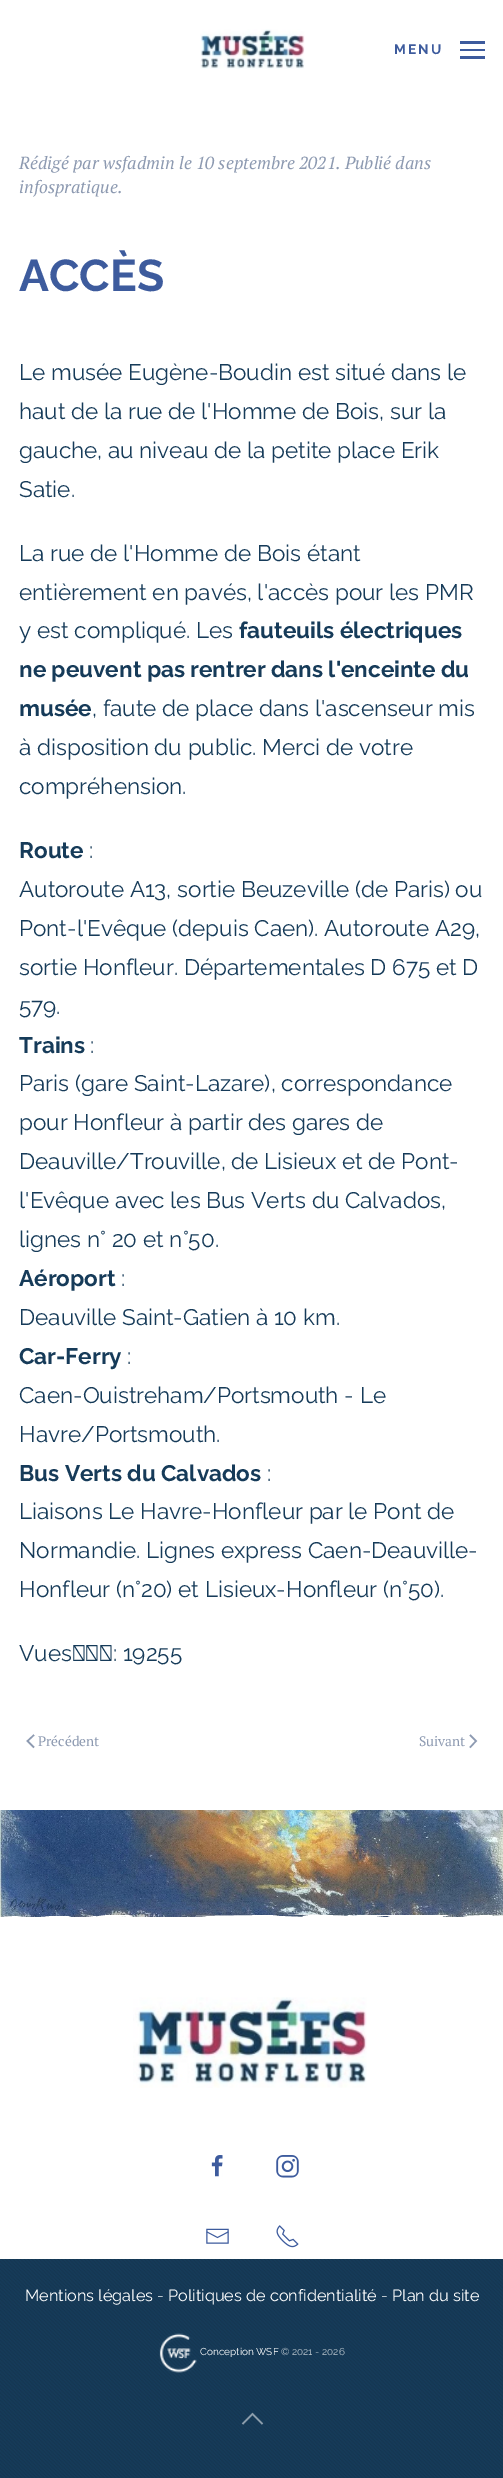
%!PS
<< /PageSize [503 2478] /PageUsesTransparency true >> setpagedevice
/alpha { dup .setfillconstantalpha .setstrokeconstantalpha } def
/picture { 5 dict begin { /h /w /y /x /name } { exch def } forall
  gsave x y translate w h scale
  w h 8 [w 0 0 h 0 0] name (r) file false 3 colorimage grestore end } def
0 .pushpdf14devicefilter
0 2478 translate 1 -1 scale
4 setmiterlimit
1 setgray
0 0 503 2478 rectfill
(img1.rgb) 200 29 105 40 picture
/Raleway-Thin [13.75 0 0 -13.75 0 0] selectfont
0.239 0.357 0.616 setrgbcolor
394 54 moveto 2 0 (MENU) ashow
460 41 25 3 rectfill
460 49 25 2 rectfill
460 56 25 3 rectfill
/PTSerif-Italic [17.5 0 0 -17.5 0 0] selectfont
0.553 0.604 0.694 setrgbcolor
19 169 moveto (Rédigé par wsfadmin le 10 septembre 2021. Publié dans) show
19 193 moveto (infospratique.) show
/Raleway-Thin [44.5 0 0 -44.5 0 0] selectfont
0.239 0.357 0.616 setrgbcolor
19 291 moveto (ACCÈS) show
/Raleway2-Thin [22.5 0 0 -22.5 0 0] selectfont
0.086 0.231 0.349 setrgbcolor
19 380 moveto (Le musée Eugène-Boudin est situé dans le) show
19 419 moveto (haut de la rue de l'Homme de Bois, sur la) show
19 458 moveto (gauche, au niveau de la petite place Erik) show
19 497 moveto (Satie.) show
19 561 moveto (La rue de l'Homme de Bois étant) show
19 600 moveto (entièrement en pavés, l'accès pour les PMR) show
19 638 moveto (y est compliqué. Les) show
/Raleway-Thin [22.5 0 0 -22.5 0 0] selectfont
239 638 moveto (fauteuils électriques) show
19 677 moveto (ne peuvent pas rentrer dans l'enceinte du) show
19 716 moveto (musée) show
/Raleway2-Thin [22.5 0 0 -22.5 0 0] selectfont
92 716 moveto (, faute de place dans l'ascenseur mis) show
19 755 moveto (à disposition du public. Merci de votre) show
19 794 moveto (compréhension.) show
/Raleway-Thin [22.5 0 0 -22.5 0 0] selectfont
19 858 moveto (Route) show
/Raleway2-Thin [22.5 0 0 -22.5 0 0] selectfont
89 858 moveto (:) show
19 897 moveto (Autoroute A13, sortie Beuzeville \(de Paris\) ou) show
19 936 moveto (Pont-l'Evêque \(depuis Caen\). Autoroute A29,) show
19 975 moveto (sortie Honfleur. Départementales D 675 et D) show
19 1014 moveto (579.) show
/Raleway-Thin [22.5 0 0 -22.5 0 0] selectfont
19 1053 moveto (Trains) show
/Raleway2-Thin [22.5 0 0 -22.5 0 0] selectfont
90 1053 moveto (:) show
19 1091 moveto (Paris \(gare Saint-Lazare\), correspondance) show
19 1130 moveto (pour Honfleur à partir des gares de) show
19 1169 moveto (Deauville/Trouville, de Lisieux et de Pont-) show
19 1208 moveto (l'Evêque avec les Bus Verts du Calvados,) show
19 1247 moveto (lignes n° 20 et n°50.) show
/Raleway-Thin [22.5 0 0 -22.5 0 0] selectfont
19 1286 moveto (Aéroport) show
/Raleway2-Thin [22.5 0 0 -22.5 0 0] selectfont
121 1286 moveto (:) show
19 1325 moveto (Deauville Saint-Gatien à 10 km.) show
/Raleway-Thin [22.5 0 0 -22.5 0 0] selectfont
19 1364 moveto (Car-Ferry) show
/Raleway2-Thin [22.5 0 0 -22.5 0 0] selectfont
127 1364 moveto (:) show
19 1403 moveto (Caen-Ouistreham/Portsmouth - Le) show
19 1442 moveto (Havre/Portsmouth.) show
/Raleway-Thin [22.5 0 0 -22.5 0 0] selectfont
19 1481 moveto (Bus Verts du Calvados) show
/Raleway2-Thin [22.5 0 0 -22.5 0 0] selectfont
267 1481 moveto (:) show
19 1519 moveto (Liaisons Le Havre-Honfleur par le Pont de) show
19 1558 moveto (Normandie. Lignes express Caen-Deauville-) show
19 1597 moveto (Honfleur \(n°20\) et Lisieux-Honfleur \(n°50\).) show
19 1661 moveto (Vues : 19255) show
0.553 0.604 0.694 setrgbcolor
1.5 setlinewidth
newpath 34 1735 moveto 27.5 1741 lineto 34 1747.5 lineto stroke
/PTSerif-Regular [13.75 0 0 -13.75 0 0] selectfont
38 1746 moveto (Précédent) show
419 1746 moveto (Suivant) show
newpath 470 1735 moveto 476 1741 lineto 470 1747.5 lineto stroke
(img2.rgb) 0 1810 503 108 picture
1 setgray
newpath 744 1918 moveto 0 1918 lineto 0 1917 lineto 16 1916 lineto 23 1917 lineto 42 1917 lineto 41 1917 lineto 41 1917 61 1916 45 1916 curveto 68 1916 lineto 71 1917 lineto 95 1917 lineto 87 1916 lineto 90 1915 96 1917 99 1916 curveto 107 1915 lineto 158 1915 lineto 128 1915 lineto 133 1916 136 1916 129 1917 curveto 117 1916 lineto 126 1918 135 1917 144 1917 curveto 195 1917 lineto 196 1917 205 1917 207 1916 curveto 196 1916 lineto 271 1915 lineto 279 1916 lineto 304 1917 lineto 299 1916 310 1915 311 1915 curveto 312 1915 lineto 284 1915 lineto 288 1915 295 1915 288 1915 curveto 308 1914 329 1915 349 1916 curveto 348 1915 lineto 357 1916 lineto 355 1915 361 1915 362 1915 curveto 399 1915 lineto 403 1915 394 1915 398 1915 curveto 414 1915 lineto 416 1915 410 1915 412 1915 curveto 448 1915 lineto 446 1917 449 1916 451 1916 curveto 443 1916 lineto 442 1917 443 1917 443 1917 curveto 468 1917 lineto 463 1916 lineto 485 1915 lineto 467 1915 lineto 491 1915 lineto 494 1915 492 1916 490 1916 curveto 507 1915 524 1914 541 1915 curveto 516 1915 lineto 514 1915 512 1916 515 1916 curveto 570 1916 lineto 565 1916 lineto 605 1915 lineto 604 1916 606 1916 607 1916 curveto 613 1917 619 1915 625 1916 curveto 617 1915 lineto 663 1917 lineto 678 1916 lineto 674 1916 lineto 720 1916 lineto closepath 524 1914 moveto 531 1914 lineto closepath 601 1914 moveto 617 1915 lineto closepath 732 1914 moveto 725 1915 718 1914 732 1914 curveto closepath 374 1915 moveto 380 1915 lineto closepath 398 1916 moveto 385 1916 387 1917 392 1917 curveto 375 1917 lineto 383 1916 lineto closepath 269 1916 moveto 255 1917 lineto closepath 467 1915 moveto 467 1914 lineto 465 1915 466 1915 467 1915 curveto closepath eofill
(img3.rgb) 133 1997 234 91 picture
(img4.rgb) 211 2155 12 22 picture
(img5.rgb) 276 2155 23 23 picture
(img6.rgb) 206 2228 23 16 picture
(img7.rgb) 276 2225 23 23 picture
0.086 0.231 0.349 setrgbcolor
0 2259 503 219 rectfill
(img8.rgb) 0 2259 503 219 picture
/Raleway2-Thin [16.25 0 0 -16.25 0 0] selectfont
1 setgray
25 2301 moveto (Mentions légales) show
0.725 0.769 0.8 setrgbcolor
157 2301 moveto (-) show
1 setgray
168 2301 moveto (Politiques de confidentialité) show
0.725 0.769 0.8 setrgbcolor
381 2301 moveto (-) show
1 setgray
392 2301 moveto (Plan du site) show
(img9.rgb) 159 2333 38 40 picture
/Raleway2-Thin [10 0 0 -10 0 0] selectfont
200 2355 moveto (Conception WSF) show
0.725 0.769 0.8 setrgbcolor
281 2355 moveto (© 2021 - 2026) show
0.5 alpha
1 setgray
newpath 242.5 2424 moveto 252.5 2414 lineto 262.5 2424 lineto stroke
.poppdf14devicefilter showpage
